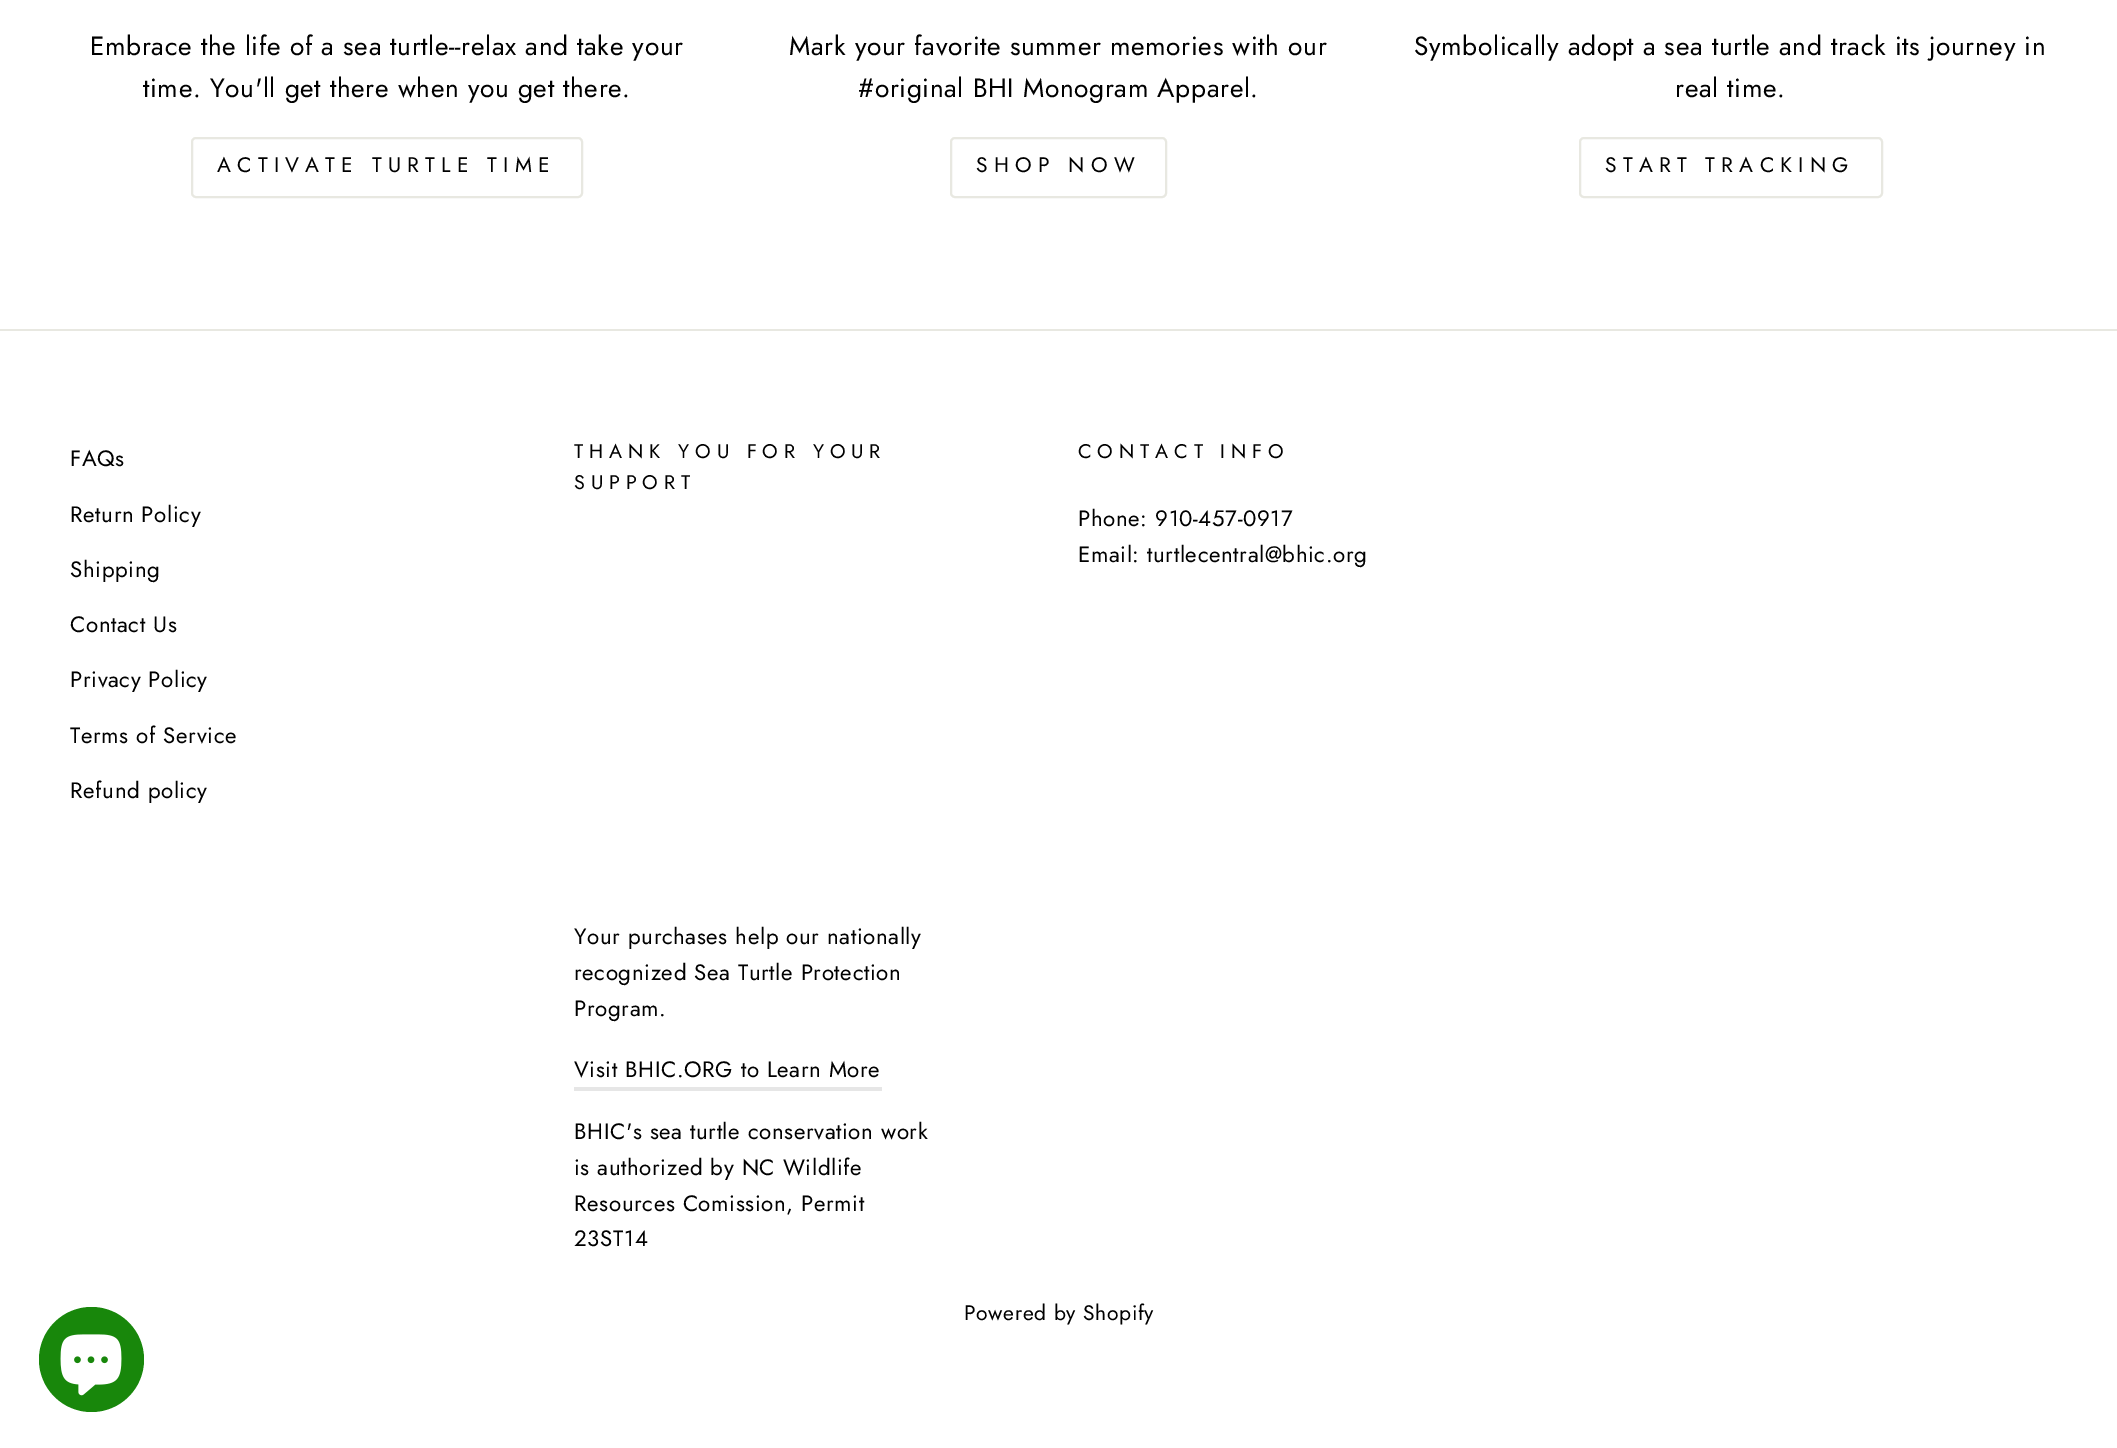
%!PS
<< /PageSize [2117 1448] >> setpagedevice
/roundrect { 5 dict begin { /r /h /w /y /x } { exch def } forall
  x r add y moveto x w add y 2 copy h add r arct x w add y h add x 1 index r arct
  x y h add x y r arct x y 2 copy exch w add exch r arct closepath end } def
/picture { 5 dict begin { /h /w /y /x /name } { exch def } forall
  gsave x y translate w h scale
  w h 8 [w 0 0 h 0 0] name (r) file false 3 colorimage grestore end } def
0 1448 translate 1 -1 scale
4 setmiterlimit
1 setgray
0 0 2117 1448 rectfill
/Jost-Regular [26.25 0 0 -26.25 0 0] selectfont
0 setgray
90 55 moveto 0.65 0 (Embrace the life of a sea turtle--relax and take your) ashow
143 97 moveto 0.65 0 (time. You'll get there when you get there.) ashow
0.91 0.91 0.882 setrgbcolor
2 setlinewidth
192 138 390 59 4 roundrect stroke
/Jost-Regular [21 0 0 -21 0 0] selectfont
0 setgray
217 172 moveto 6.25 0 (ACTIVATE TURTLE TIME) ashow
/Jost-Regular [26.25 0 0 -26.25 0 0] selectfont
789 55 moveto 0.65 0 (Mark your favorite summer memories with our) ashow
858 97 moveto 0.65 0 (#original BHI Monogram Apparel.) ashow
0.91 0.91 0.882 setrgbcolor
951 138 215 59 4 roundrect stroke
/Jost-Regular [21 0 0 -21 0 0] selectfont
0 setgray
976 172 moveto 6.25 0 (SHOP NOW) ashow
/Jost-Regular [26.25 0 0 -26.25 0 0] selectfont
1414 55 moveto 0.65 0 (Symbolically adopt a sea turtle and track its journey in) ashow
1675 97 moveto 0.65 0 (real time.) ashow
0.91 0.91 0.882 setrgbcolor
1580 138 302 59 4 roundrect stroke
/Jost-Regular [21 0 0 -21 0 0] selectfont
0 setgray
1605 172 moveto 6.25 0 (START TRACKING) ashow
0.91 0.91 0.882 setrgbcolor
0 329 2117 2 rectfill
/Jost-Regular [22.25 0 0 -22.25 0 0] selectfont
0 setgray
70 466 moveto 0.65 0 (FAQs) ashow
70 522 moveto 0.65 0 (Return Policy) ashow
70 577 moveto 0.65 0 (Shipping) ashow
70 632 moveto 0.65 0 (Contact Us) ashow
70 687 moveto 0.65 0 (Privacy Policy) ashow
70 743 moveto 0.65 0 (Terms of Service) ashow
70 798 moveto 0.65 0 (Refund policy) ashow
/Jost-Regular [19.75 0 0 -19.75 0 0] selectfont
574 458 moveto 5.9 0 (THANK YOU FOR YOUR) ashow
574 489 moveto 5.9 0 (SUPPORT) ashow
/Jost-Regular [22.25 0 0 -22.25 0 0] selectfont
574 944 moveto 0.65 0 (Your purchases help our nationally) ashow
574 980 moveto 0.65 0 (recognized Sea Turtle Protection) ashow
574 1016 moveto 0.65 0 (Program.) ashow
574 1077 moveto 0.65 0 (Visit BHIC.ORG to Learn More) ashow
0.902 setgray
574 1087 308 4 rectfill
0 setgray
574 1139 moveto 0.65 0 (BHIC's sea turtle conservation work) ashow
574 1175 moveto 0.65 0 (is authorized by NC Wildlife) ashow
574 1211 moveto 0.65 0 (Resources Comission, Permit) ashow
574 1246 moveto 0.65 0 (23ST14) ashow
/Jost-Regular [19.75 0 0 -19.75 0 0] selectfont
1078 458 moveto 5.9 0 (CONTACT INFO) ashow
/Jost-Regular [22.25 0 0 -22.25 0 0] selectfont
1078 526 moveto 0.65 0 (Phone: 910-457-0917) ashow
1078 562 moveto 0.65 0 (Email: turtlecentral@bhic.org) ashow
/Jost-Regular [21 0 0 -21 0 0] selectfont
964 1320 moveto 0.65 0 (Powered by Shopify) ashow
0.094 0.529 0.043 setrgbcolor
newpath 91.5 1359.5 52.5 0 360 arc closepath fill
(img1.rgb) 60 1334 62 62 picture
showpage
